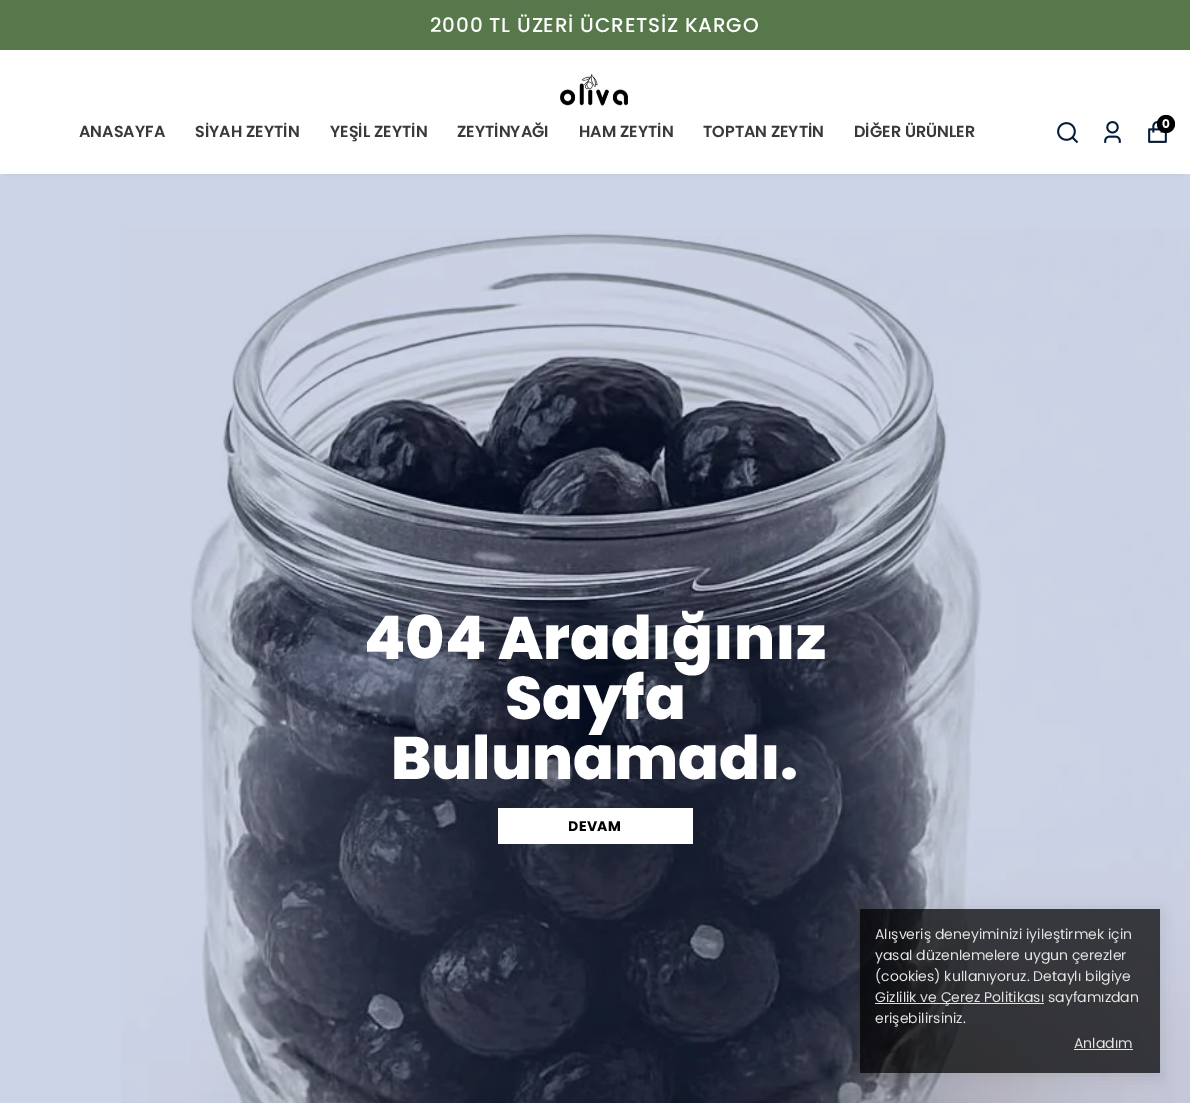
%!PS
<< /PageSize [1190 1103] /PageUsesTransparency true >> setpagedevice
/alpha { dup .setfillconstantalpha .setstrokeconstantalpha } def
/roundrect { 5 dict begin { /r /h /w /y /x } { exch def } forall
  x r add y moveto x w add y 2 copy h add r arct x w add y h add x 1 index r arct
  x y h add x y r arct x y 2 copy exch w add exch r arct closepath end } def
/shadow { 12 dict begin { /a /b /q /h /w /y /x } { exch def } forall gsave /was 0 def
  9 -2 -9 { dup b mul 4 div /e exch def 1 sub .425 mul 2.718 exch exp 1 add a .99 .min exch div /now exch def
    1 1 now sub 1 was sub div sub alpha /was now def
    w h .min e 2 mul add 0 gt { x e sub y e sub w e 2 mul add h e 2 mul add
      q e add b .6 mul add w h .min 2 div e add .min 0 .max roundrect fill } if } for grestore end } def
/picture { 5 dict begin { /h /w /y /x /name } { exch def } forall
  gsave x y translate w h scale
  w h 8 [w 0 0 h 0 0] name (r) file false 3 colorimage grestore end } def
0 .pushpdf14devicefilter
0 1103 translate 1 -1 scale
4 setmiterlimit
1 setgray
0 0 1190 1103 rectfill
0.8 0.831 0.91 setrgbcolor
0 174 1190 929 rectfill
0.341 0.471 0.294 setrgbcolor
0 0 1190 50 rectfill
/Poppins-Medium [20 0 0 -20 0 0] selectfont
1 setgray
430 32 moveto 0.8 0 (2000 TL ÜZERİ ÜCRETSİZ KARGO) ashow
gsave
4 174 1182 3 rectclip
0.596 setgray
7 62 1176 110 0 2.5 1 shadow
grestore
(img1.rgb) 560 74 68 32 picture
/Poppins-SemiBold [16 0 0 -16 0 0] selectfont
0.224 setgray
79 137 moveto (ANASAYFA) show
195 137 moveto (SİYAH ZEYTİN) show
330 137 moveto (YEŞİL ZEYTİN) show
457 137 moveto (ZEYTİNYAĞI) show
579 137 moveto (HAM ZEYTİN) show
703 137 moveto (TOPTAN ZEYTİN) show
854 137 moveto (DİĞER ÜRÜNLER) show
(img2.rgb) 1057 122 22 22 picture
(img3.rgb) 1104 121 17 22 picture
(img4.rgb) 1148 121 19 22 picture
0 setgray
newpath 1166 124 9 0 360 arc closepath fill
/Poppins-Bold [12 0 0 -12 0 0] selectfont
1 setgray
1162 128 moveto (0) show
(img5.rgb) 121 228 1069 875 picture
gsave
newpath 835 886 moveto 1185 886 lineto 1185 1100 lineto 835 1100 lineto closepath 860 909 moveto 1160 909 lineto 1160 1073 lineto 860 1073 lineto closepath eoclip newpath
0 setgray
860 911 300 164 0 8 0.1 shadow
grestore
0.73 alpha
0 setgray
860 909 300 164 rectfill
/Poppins-Regular [14 0 0 -14 0 0] selectfont
1 alpha
0.886 0.886 0.89 setrgbcolor
875 939 moveto (Alışveriş deneyiminizi iyileştirmek için) show
875 960 moveto (yasal düzenlemelere uygun çerezler) show
875 981 moveto (\(cookies\) kullanıyoruz. Detaylı bilgiye) show
0.86 alpha
1 setgray
875 1003 169 1 rectfill
1 alpha
0.886 0.886 0.89 setrgbcolor
875 1002 moveto (Gizlilik ve Çerez Politikası) show
1048 1002 moveto (sayfamızdan) show
875 1023 moveto (erişebilirsiniz.) show
1074 1048 moveto (Anladım) show
0.89 setgray
1074 1049 59 1 rectfill
/Poppins-ExtraBold [60 0 0 -60 0 0] selectfont
1 setgray
364 659 moveto (404 Aradığınız) show
505 719 moveto (Sayfa) show
391 779 moveto (Bulunamadı.) show
498 808 195 36 rectfill
/Poppins-Bold [14 0 0 -14 0 0] selectfont
0 setgray
568 831 moveto 0.5 0 (DEVAM) ashow
.poppdf14devicefilter showpage
